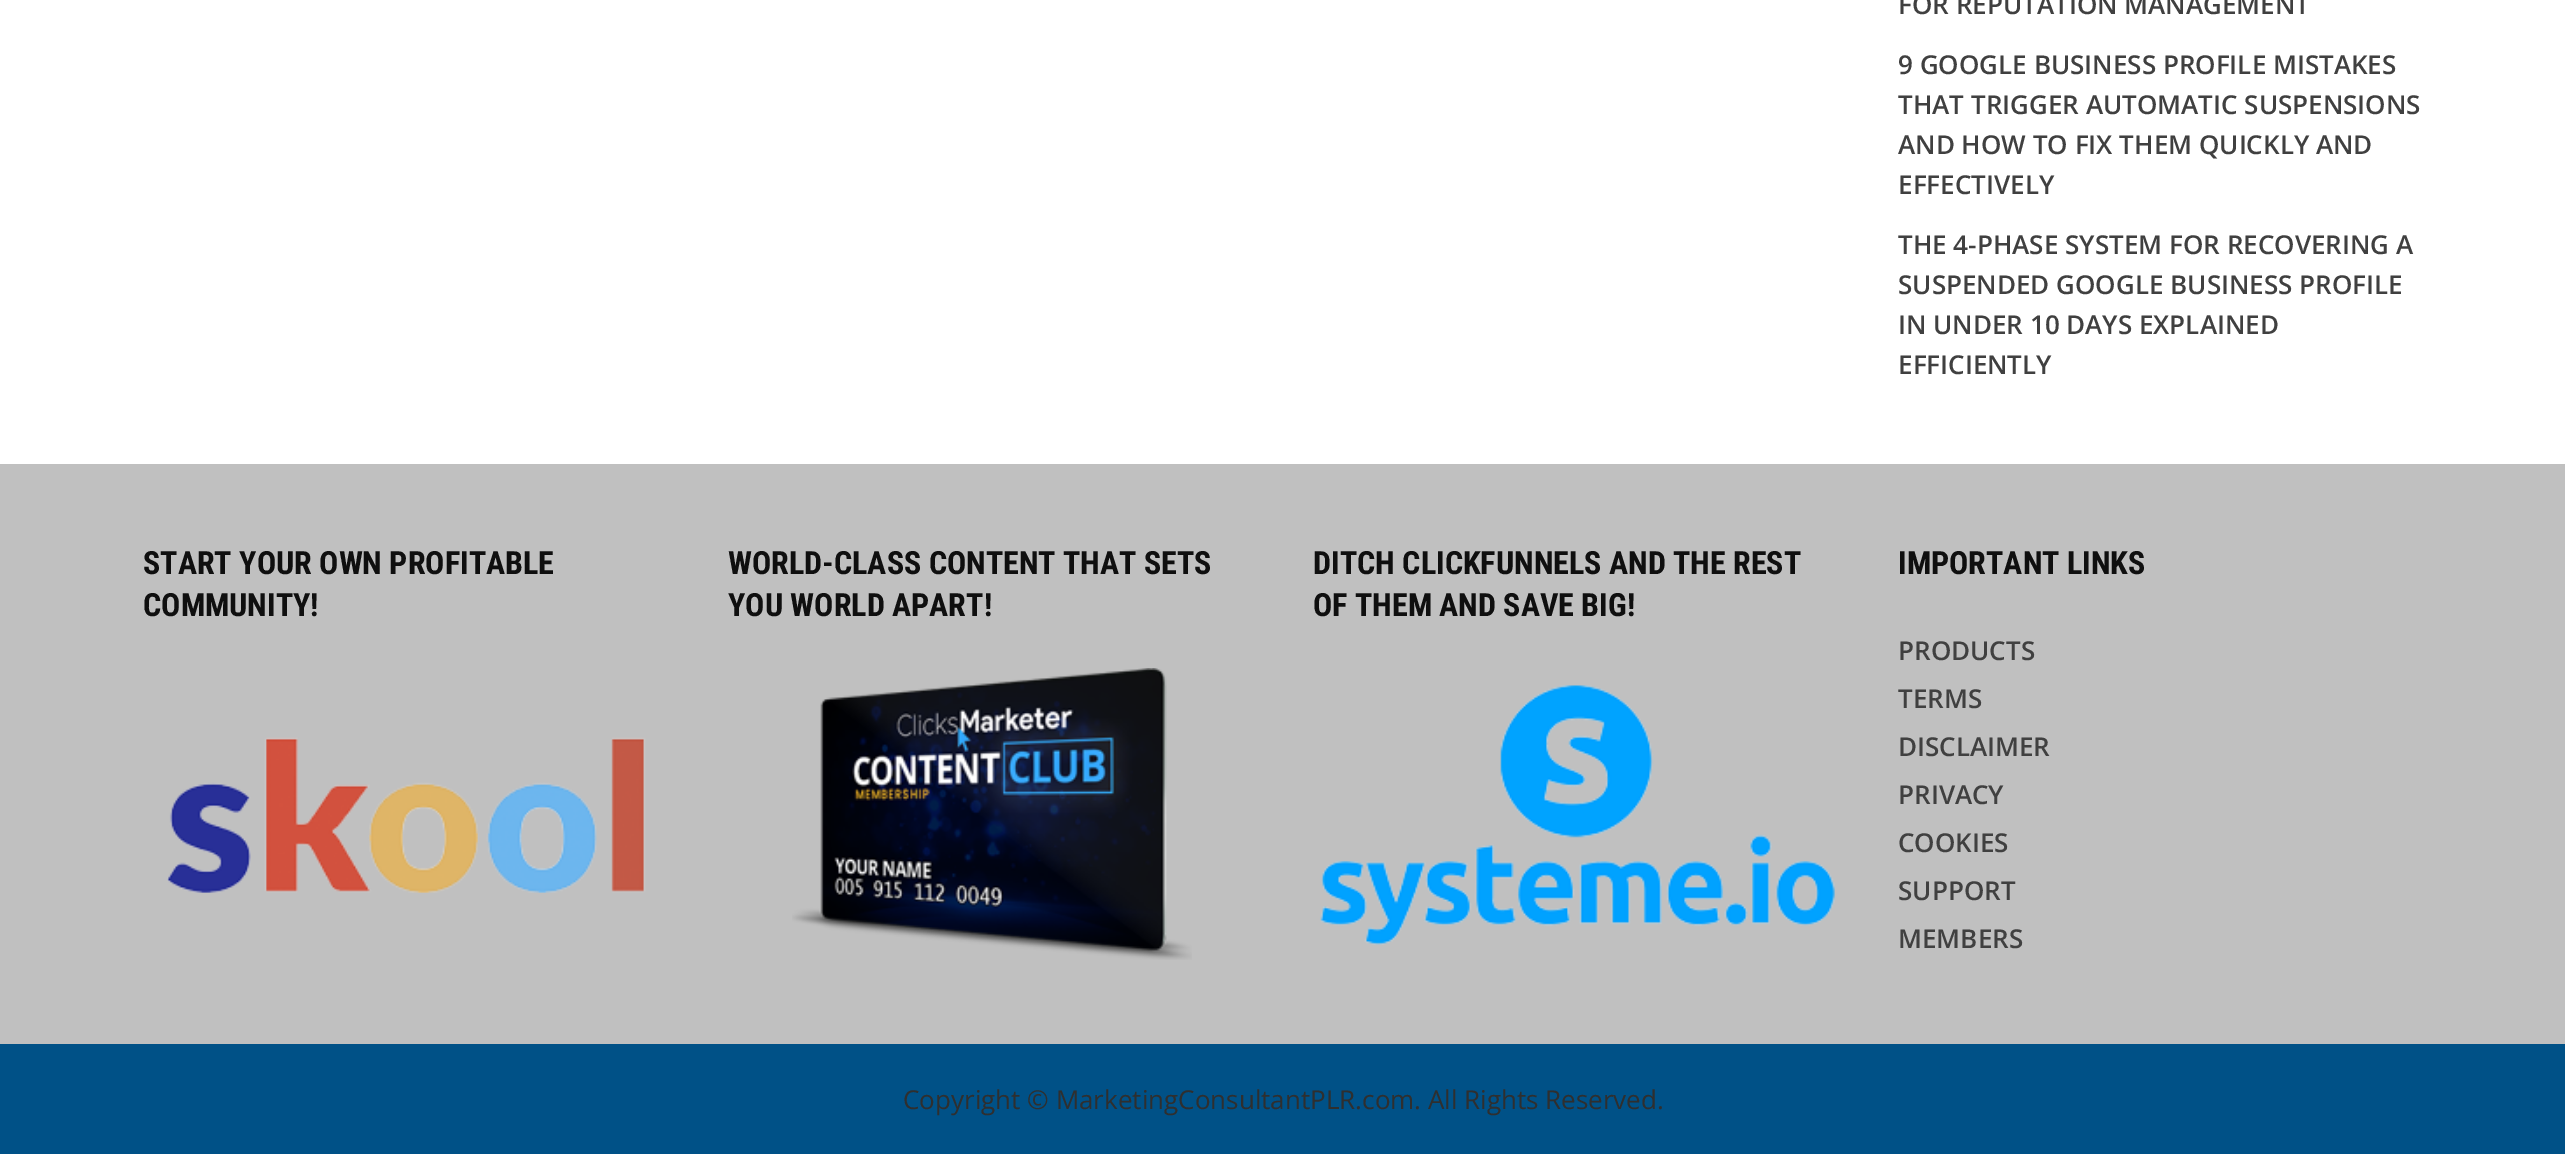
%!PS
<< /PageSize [2565 1154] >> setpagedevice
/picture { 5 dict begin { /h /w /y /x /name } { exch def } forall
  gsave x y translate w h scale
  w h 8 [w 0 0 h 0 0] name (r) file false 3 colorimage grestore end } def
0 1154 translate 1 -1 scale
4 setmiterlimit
1 setgray
0 0 2565 1154 rectfill
/OpenSans-SemiBold [26 0 0 -26 0 0] selectfont
0.251 setgray
1898 14 moveto (FOR REPUTATION MANAGEMENT) show
1898 74 moveto (9 GOOGLE BUSINESS PROFILE MISTAKES) show
1898 114 moveto (THAT TRIGGER AUTOMATIC SUSPENSIONS) show
1898 154 moveto (AND HOW TO FIX THEM QUICKLY AND) show
1898 194 moveto (EFFECTIVELY) show
1898 254 moveto (THE 4-PHASE SYSTEM FOR RECOVERING A) show
1898 294 moveto (SUSPENDED GOOGLE BUSINESS PROFILE) show
1898 334 moveto (IN UNDER 10 DAYS EXPLAINED) show
1898 374 moveto (EFFICIENTLY) show
0.753 setgray
0 464 2565 580 rectfill
/RobotoCondensed-Bold [32 0 0 -32 0 0] selectfont
0.059 setgray
143 574 moveto (START YOUR OWN PROFITABLE) show
143 616 moveto (COMMUNITY!) show
(img1.rgb) 167 737 479 156 picture
728 574 moveto (WORLD-CLASS CONTENT THAT SETS) show
728 616 moveto (YOU WORLD APART!) show
(img2.rgb) 792 668 400 292 picture
1313 574 moveto (DITCH CLICKFUNNELS AND THE REST) show
1313 616 moveto (OF THEM AND SAVE BIG!) show
(img3.rgb) 1320 685 515 260 picture
1898 574 moveto (IMPORTANT LINKS) show
/OpenSans-SemiBold [26 0 0 -26 0 0] selectfont
0.251 setgray
1898 660 moveto (PRODUCTS) show
1898 708 moveto (TERMS) show
1898 756 moveto (DISCLAIMER) show
1898 804 moveto (PRIVACY) show
1898 852 moveto (COOKIES) show
1898 900 moveto (SUPPORT) show
1898 948 moveto (MEMBERS) show
0 0.318 0.529 setrgbcolor
0 1044 2565 110 rectfill
/OpenSans-Regular [26 0 0 -26 0 0] selectfont
0.184 setgray
903 1109 moveto (Copyright © MarketingConsultantPLR.com. All Rights Reserved.) show
showpage
